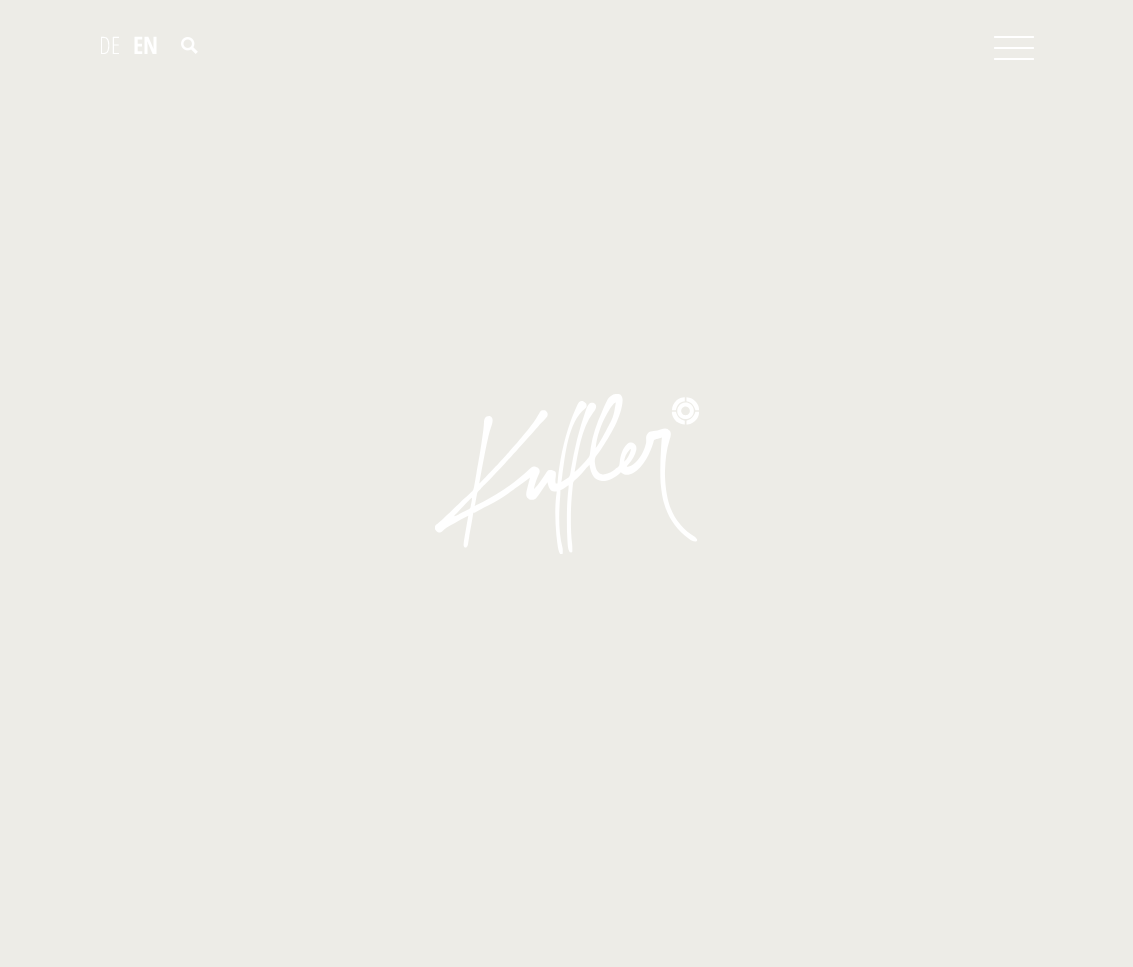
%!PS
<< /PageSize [1133 967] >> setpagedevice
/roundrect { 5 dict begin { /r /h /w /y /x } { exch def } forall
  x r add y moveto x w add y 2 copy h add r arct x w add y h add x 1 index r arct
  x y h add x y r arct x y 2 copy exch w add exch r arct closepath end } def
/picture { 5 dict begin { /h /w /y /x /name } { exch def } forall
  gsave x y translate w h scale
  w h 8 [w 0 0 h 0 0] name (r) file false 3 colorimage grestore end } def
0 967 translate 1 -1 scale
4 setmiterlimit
0.929 0.925 0.906 setrgbcolor
0 0 1133 967 rectfill
/OpenSansCondensed-Light [24 0 0 -24 0 0] selectfont
1 setgray
99 54 moveto (DE) show
/OpenSansCondensed-Bold [24 0 0 -24 0 0] selectfont
133 54 moveto (EN) show
(img1.rgb) 181 37 17 17 picture
994 36 40 2 1 roundrect fill
994 47 40 2 1 roundrect fill
994 58 40 2 1 roundrect fill
(img2.rgb) 435 394 264 160 picture
showpage
